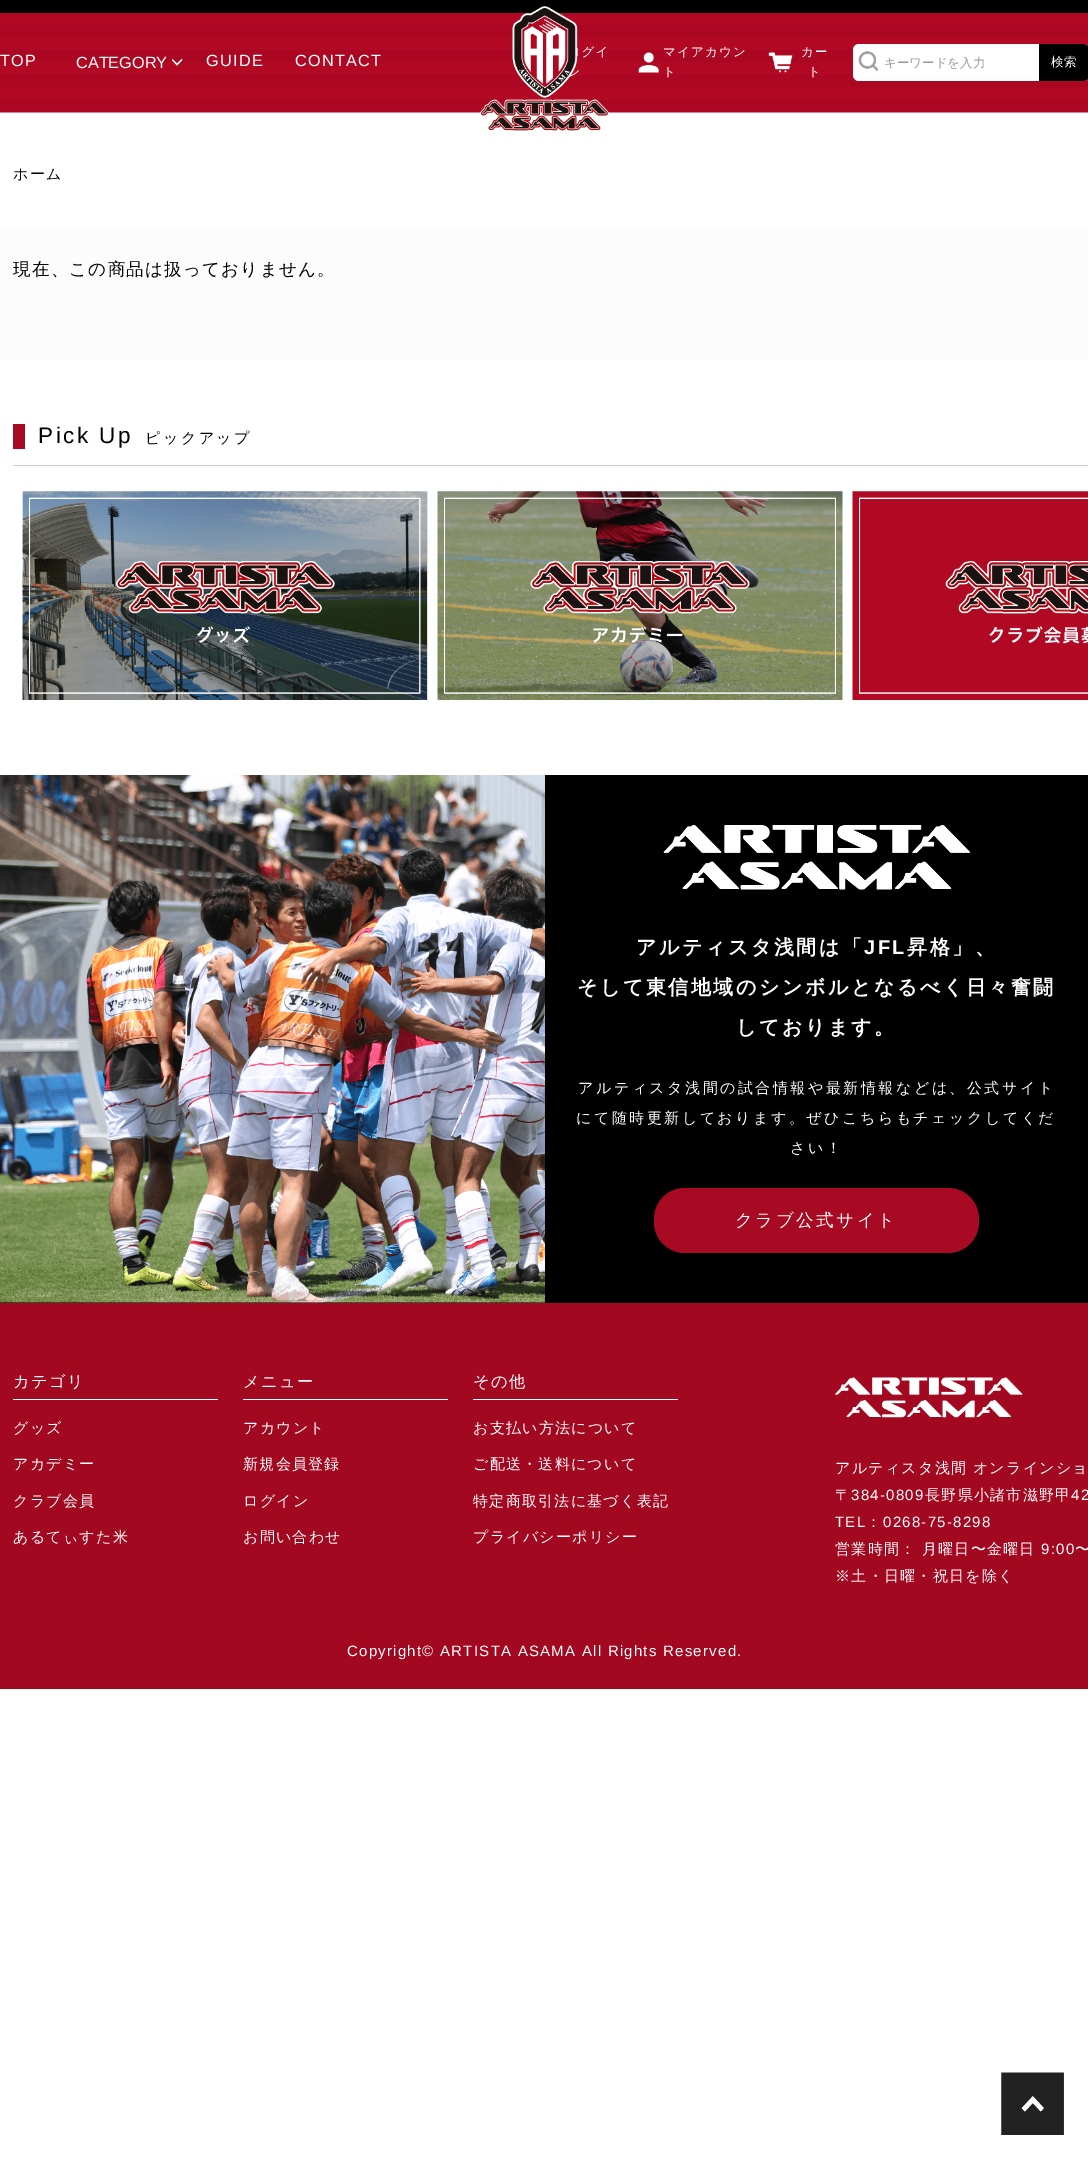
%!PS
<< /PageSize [1088 2160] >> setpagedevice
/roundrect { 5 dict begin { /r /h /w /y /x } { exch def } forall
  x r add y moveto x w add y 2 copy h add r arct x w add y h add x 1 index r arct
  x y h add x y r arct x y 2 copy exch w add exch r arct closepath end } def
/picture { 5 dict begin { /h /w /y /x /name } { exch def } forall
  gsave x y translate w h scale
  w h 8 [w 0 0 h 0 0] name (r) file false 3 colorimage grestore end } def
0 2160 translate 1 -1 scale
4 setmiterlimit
1 setgray
0 0 1088 2160 rectfill
(img1.rgb) 0 13 1088 100 picture
0 setgray
0 0 1088 13 rectfill
/LiberationSans-Regular [16.25 0 0 -16.25 0 0] selectfont
1 setgray
0 66 moveto 1.25 0 (TOP) ashow
76 68 moveto (CATEGORY) show
newpath 181.5 59 moveto 182.5 60 lineto 177 65.5 lineto 176 64.5 lineto closepath fill
newpath 172.5 59 moveto 178 64.5 lineto 177 65.5 lineto 172 60 lineto closepath fill
206 66 moveto 1.25 0 (GUIDE) ashow
295 66 moveto 1.25 0 (CONTACT) ashow
/WenQuanYiZenHei-Medium [12.5 0 0 -12.5 0 0] selectfont
582 56 moveto 1.25 0 (グイ) ashow
568 76 moveto 1.25 0 (ン) ashow
(img2.rgb) 480 6 129 125 picture
(img3.rgb) 638 52 21 21 picture
663 56 moveto 1.25 0 (マイアカウン) ashow
663 76 moveto 1.25 0 (ト) ashow
(img4.rgb) 768 52 25 21 picture
801 56 moveto 1.25 0 (カー) ashow
808 76 moveto 1.25 0 (ト) ashow
853 44 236 37 6 roundrect fill
(img5.rgb) 858 51 21 21 picture
0.6 setgray
884 67 moveto (キーワードを入力) show
0 setgray
newpath 1039 44 moveto 1083 44 lineto 1086.5 44 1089 46.5 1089 50 curveto 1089 75 lineto 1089 78.5 1086.5 81 1083 81 curveto 1039 81 lineto closepath fill
1 setgray
1051 66 moveto (検索) show
/WenQuanYiZenHei-Medium [15 0 0 -15 0 0] selectfont
0 setgray
13 179 moveto 1.25 0 (ホーム) ashow
0.988 setgray
0 230 1088 129 rectfill
/WenQuanYiZenHei-Medium [17.5 0 0 -17.5 0 0] selectfont
0 setgray
13 275 moveto 1.25 0 (現在、この商品は扱っておりません。) ashow
0.8 setgray
13 465 1075 1 rectfill
0.659 0.039 0.137 setrgbcolor
13 424 12 25 rectfill
/LiberationSans-Regular [22.5 0 0 -22.5 0 0] selectfont
0 setgray
38 443 moveto 2.5 0 (Pick Up) ashow
/WenQuanYiZenHei-Medium [15 0 0 -15 0 0] selectfont
145 443 moveto 2.5 0 (ピックアップ) ashow
(img6.rgb) 22 491 406 209 picture
(img7.rgb) 437 491 406 209 picture
(img8.rgb) 852 491 236 209 picture
0 775 1088 528 rectfill
(img9.rgb) 0 775 545 528 picture
(img10.rgb) 663 825 307 65 picture
/WenQuanYiZenHei-Bold [20 0 0 -20 0 0] selectfont
1 setgray
636 954 moveto 2.5 0 (アルティスタ浅間は「) ashow
/LiberationSans-Bold [20 0 0 -20 0 0] selectfont
864 954 moveto 2.5 0 (JFL) ashow
/WenQuanYiZenHei-Bold [20 0 0 -20 0 0] selectfont
907 954 moveto 2.5 0 (昇格」、) ashow
577 994 moveto 2.5 0 (そして東信地域のシンボルとなるべく日々奮闘) ashow
736 1034 moveto 2.5 0 (しております。) ashow
/WenQuanYiZenHei-Medium [15 0 0 -15 0 0] selectfont
578 1093 moveto 2.5 0 (アルティスタ浅間の試合情報や最新情報などは、公式サイト) ashow
576 1123 moveto 2.5 0 (にて随時更新しております。ぜひこちらもチェックしてくだ) ashow
790 1153 moveto 2.5 0 (さい！) ashow
0.659 0.039 0.137 setrgbcolor
654 1188 325 65 31 roundrect fill
/WenQuanYiZenHei-Medium [17.5 0 0 -17.5 0 0] selectfont
1 setgray
735 1226 moveto 2.5 0 (クラブ公式サイト) ashow
0.635 0.035 0.129 setrgbcolor
0 1303 1088 386 rectfill
1 setgray
13 1399 205 1 rectfill
/WenQuanYiZenHei-Medium [16.25 0 0 -16.25 0 0] selectfont
13 1387 moveto 1.25 0 (カテゴリ) ashow
/WenQuanYiZenHei-Medium [15 0 0 -15 0 0] selectfont
13 1433 moveto 1.25 0 (グッズ) ashow
13 1469 moveto 1.25 0 (アカデミー) ashow
13 1506 moveto 1.25 0 (クラブ会員) ashow
13 1542 moveto 1.25 0 (あるてぃすた米) ashow
243 1399 205 1 rectfill
/WenQuanYiZenHei-Medium [16.25 0 0 -16.25 0 0] selectfont
243 1387 moveto 1.25 0 (メニュー) ashow
/WenQuanYiZenHei-Medium [15 0 0 -15 0 0] selectfont
243 1433 moveto 1.25 0 (アカウント) ashow
243 1469 moveto 1.25 0 (新規会員登録) ashow
243 1506 moveto 1.25 0 (ログイン) ashow
243 1542 moveto 1.25 0 (お問い合わせ) ashow
473 1399 205 1 rectfill
/WenQuanYiZenHei-Medium [16.25 0 0 -16.25 0 0] selectfont
473 1387 moveto 1.25 0 (その他) ashow
/WenQuanYiZenHei-Medium [15 0 0 -15 0 0] selectfont
473 1433 moveto 1.25 0 (お支払い方法について) ashow
473 1469 moveto 1.25 0 (ご配送・送料について) ashow
473 1506 moveto 1.25 0 (特定商取引法に基づく表記) ashow
473 1542 moveto 1.25 0 (プライバシーポリシー) ashow
(img11.rgb) 835 1377 188 41 picture
835 1473 moveto 1.25 0 (アルティスタ浅間 オンラインショ) ashow
835 1500 moveto 1.25 0 (〒) ashow
/LiberationSans-Regular [15 0 0 -15 0 0] selectfont
851 1500 moveto 1.25 0 (384-0809) ashow
/WenQuanYiZenHei-Medium [15 0 0 -15 0 0] selectfont
925 1500 moveto 1.25 0 (長野県小諸市滋野甲) ashow
/LiberationSans-Regular [15 0 0 -15 0 0] selectfont
1071 1500 moveto 1.25 0 (42) ashow
835 1527 moveto 1.25 0 (TEL) ashow
/WenQuanYiZenHei-Medium [15 0 0 -15 0 0] selectfont
866 1527 moveto 1.25 0 (：) ashow
/LiberationSans-Regular [15 0 0 -15 0 0] selectfont
883 1527 moveto 1.25 0 (0268-75-8298) ashow
/WenQuanYiZenHei-Medium [15 0 0 -15 0 0] selectfont
835 1554 moveto 1.25 0 (営業時間： 月曜日〜金曜日) ashow
/LiberationSans-Regular [15 0 0 -15 0 0] selectfont
1041 1554 moveto 1.25 0 (9:00) ashow
/WenQuanYiZenHei-Medium [15 0 0 -15 0 0] selectfont
1075 1554 moveto 1.25 0 (〜) ashow
835 1581 moveto 1.25 0 (※土・日曜・祝日を除く) ashow
/LiberationSans-Regular [15 0 0 -15 0 0] selectfont
347 1656 moveto 1.25 0 (Copyright© ARTISTA ASAMA All Rights Reserved.) ashow
(img12.rgb) 1001 2072 63 63 picture
showpage
